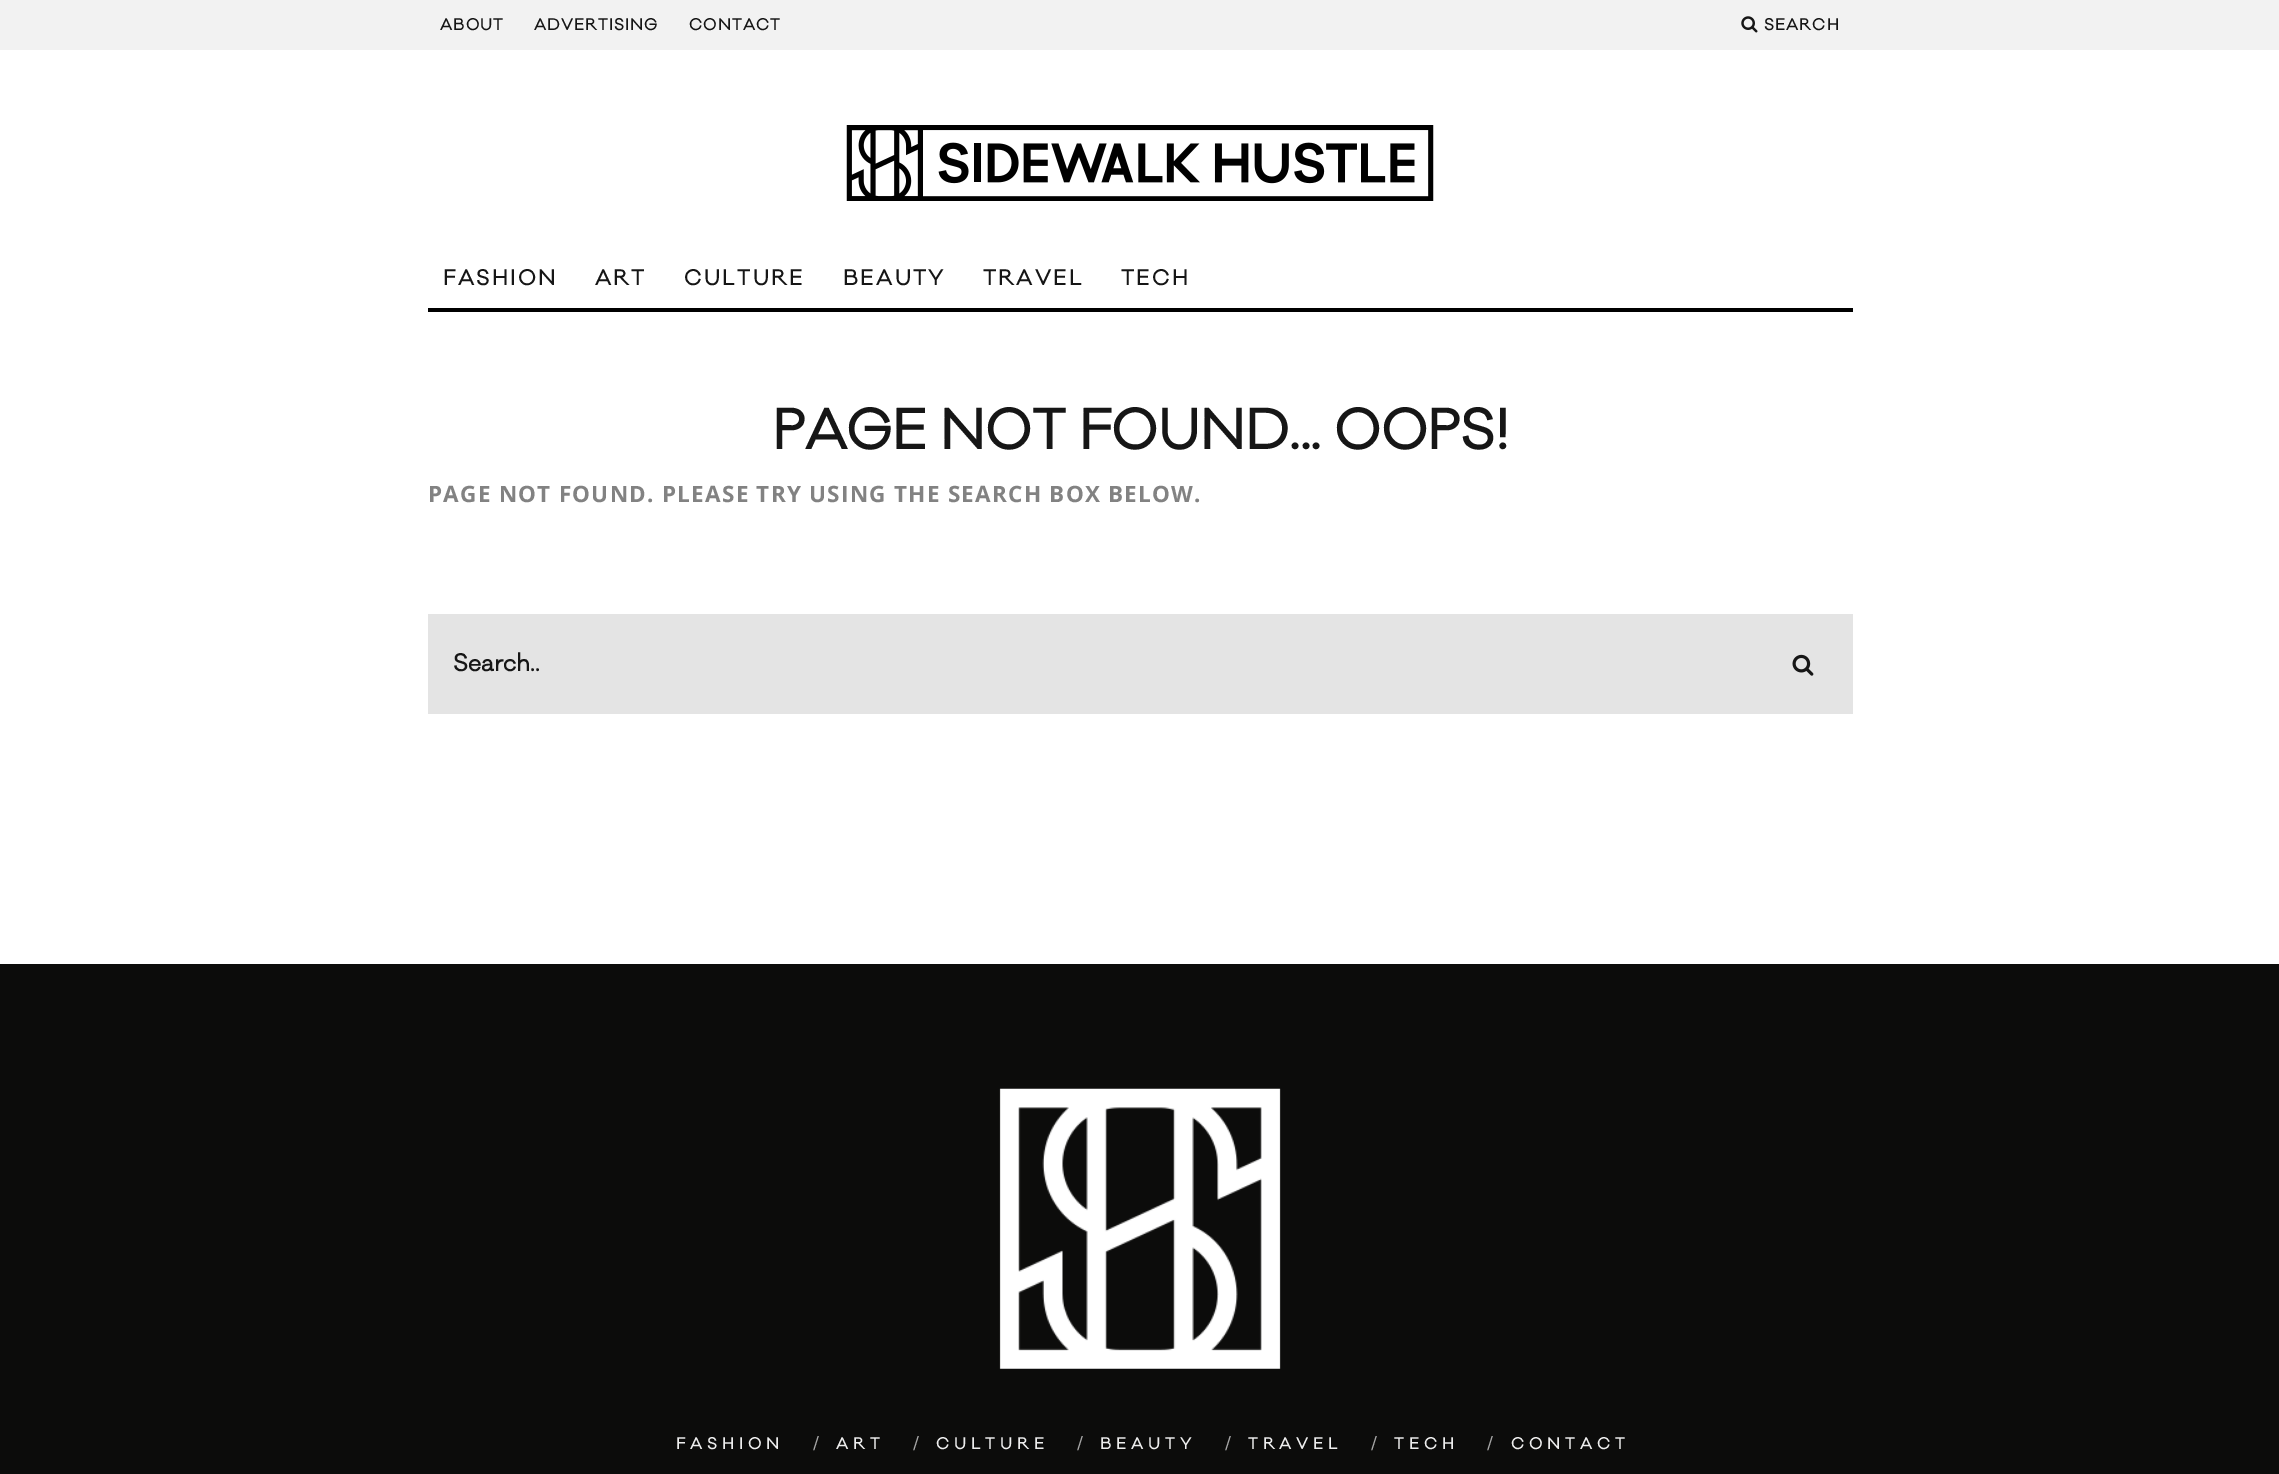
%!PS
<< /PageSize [2279 1474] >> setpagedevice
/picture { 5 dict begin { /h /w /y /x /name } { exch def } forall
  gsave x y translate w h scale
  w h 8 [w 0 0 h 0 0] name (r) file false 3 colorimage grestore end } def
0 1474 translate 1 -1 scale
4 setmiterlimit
1 setgray
0 0 2279 1474 rectfill
0.949 setgray
0 0 2279 50 rectfill
/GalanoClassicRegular-Bold [15 0 0 -15 0 0] selectfont
0.086 setgray
440 30 moveto 1.25 0 (ABOUT) ashow
534 30 moveto 1.25 0 (ADVERTISING) ashow
689 30 moveto 1.25 0 (CONTACT) ashow
(img1.rgb) 1741 16 17 17 picture
1764 30 moveto 1.25 0 (SEARCH) ashow
(img2.rgb) 846 125 588 76 picture
0 setgray
428 308 1425 4 rectfill
/GalanoClassicRegular-Bold [20 0 0 -20 0 0] selectfont
0.086 setgray
443 285 moveto 2.5 0 (FASHION) ashow
595 285 moveto 2.5 0 (ART) ashow
684 285 moveto 2.5 0 (CULTURE) ashow
843 285 moveto 2.5 0 (BEAUTY) ashow
983 285 moveto 2.5 0 (TRAVEL) ashow
1121 285 moveto 2.5 0 (TECH) ashow
/GalanoClassicRegular-Bold [52.5 0 0 -52.5 0 0] selectfont
772 449 moveto (PAGE NOT FOUND... OOPS!) show
/OpenSans-Bold [22.5 0 0 -22.5 0 0] selectfont
0.51 setgray
428 502 moveto 1.25 0 (PAGE NOT FOUND. PLEASE TRY USING THE SEARCH BOX BELOW.) ashow
0.894 setgray
428 614 1425 100 rectfill
/GalanoClassicRegular-Bold [22.5 0 0 -22.5 0 0] selectfont
0.086 setgray
453 671 moveto (Search..) show
(img3.rgb) 1792 654 22 22 picture
0.047 0.047 0.043 setrgbcolor
0 964 2279 510 rectfill
(img4.rgb) 999 1088 282 281 picture
/GalanoClassicRegular-Bold [15 0 0 -15 0 0] selectfont
0.933 setgray
676 1449 moveto 5 0 (FASHION) ashow
0.651 setgray
813 1449 moveto 5 0 (/) ashow
0.933 setgray
836 1449 moveto 5 0 (ART) ashow
0.651 setgray
913 1449 moveto 5 0 (/) ashow
0.933 setgray
936 1449 moveto 5 0 (CULTURE) ashow
0.651 setgray
1077 1449 moveto 5 0 (/) ashow
0.933 setgray
1100 1449 moveto 5 0 (BEAUTY) ashow
0.651 setgray
1225 1449 moveto 5 0 (/) ashow
0.933 setgray
1248 1449 moveto 5 0 (TRAVEL) ashow
0.651 setgray
1371 1449 moveto 5 0 (/) ashow
0.933 setgray
1394 1449 moveto 5 0 (TECH) ashow
0.651 setgray
1487 1449 moveto 5 0 (/) ashow
0.933 setgray
1511 1449 moveto 5 0 (CONTACT) ashow
showpage
